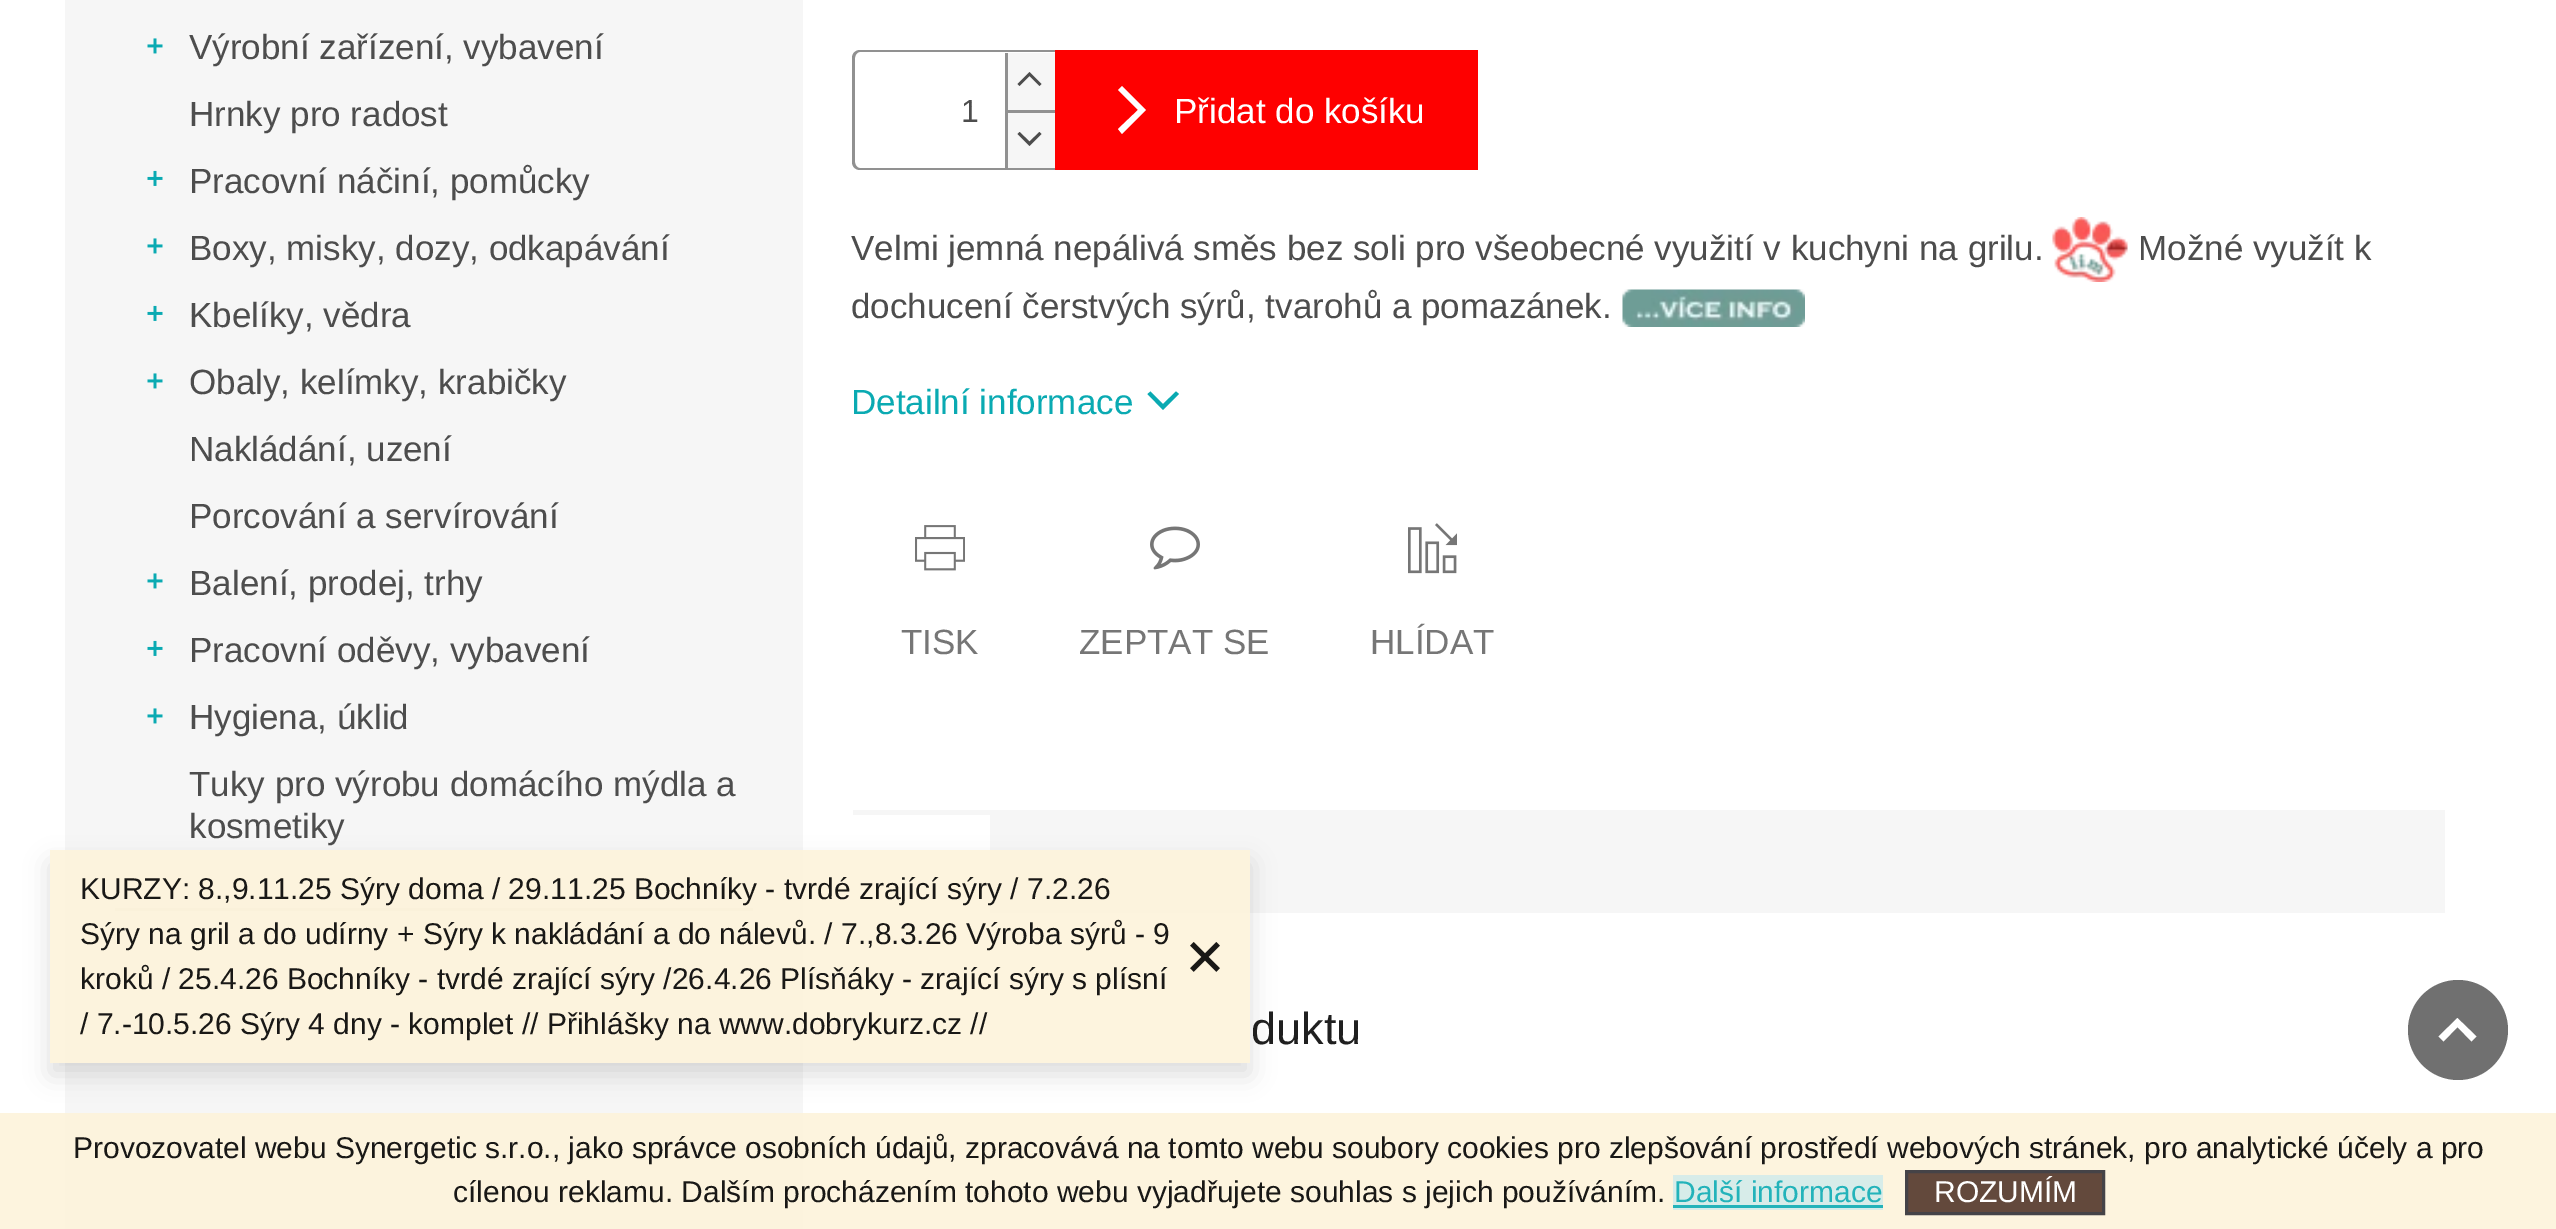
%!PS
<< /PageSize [2556 1229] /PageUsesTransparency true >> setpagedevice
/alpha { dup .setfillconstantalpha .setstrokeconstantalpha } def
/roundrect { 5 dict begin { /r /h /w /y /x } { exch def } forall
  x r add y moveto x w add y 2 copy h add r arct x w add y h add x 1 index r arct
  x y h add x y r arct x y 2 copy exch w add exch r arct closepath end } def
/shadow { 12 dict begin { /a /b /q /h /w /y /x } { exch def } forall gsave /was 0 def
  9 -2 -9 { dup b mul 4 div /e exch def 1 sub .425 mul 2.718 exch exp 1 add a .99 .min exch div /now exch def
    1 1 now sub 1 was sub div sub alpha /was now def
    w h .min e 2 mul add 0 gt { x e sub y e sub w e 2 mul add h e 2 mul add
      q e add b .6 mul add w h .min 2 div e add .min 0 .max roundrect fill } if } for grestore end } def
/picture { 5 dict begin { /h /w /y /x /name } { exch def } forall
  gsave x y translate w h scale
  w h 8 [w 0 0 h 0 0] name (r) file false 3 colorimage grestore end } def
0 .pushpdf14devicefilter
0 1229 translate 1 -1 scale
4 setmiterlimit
1 setgray
0 0 2556 1229 rectfill
0.965 setgray
65 0 738 1229 rectfill
0.855 setgray
115 908 638 3 rectfill
(img1.rgb) 147 38 16 16 picture
/LiberationSans-Regular [35 0 0 -35 0 0] selectfont
0.302 setgray
189 59 moveto (Výrobní zařízení, vybavení) show
189 126 moveto (Hrnky pro radost) show
(img2.rgb) 147 170 16 16 picture
189 193 moveto (Pracovní náčiní, pomůcky) show
(img1.rgb) 147 238 16 16 picture
189 260 moveto (Boxy, misky, dozy, odkapávání) show
(img2.rgb) 147 305 16 16 picture
189 327 moveto (Kbelíky, vědra) show
(img1.rgb) 147 373 16 16 picture
189 394 moveto (Obaly, kelímky, krabičky) show
189 461 moveto (Nakládání, uzení) show
189 528 moveto (Porcování a servírování) show
(img1.rgb) 147 573 16 16 picture
189 595 moveto (Balení, prodej, trhy) show
(img2.rgb) 147 640 16 16 picture
189 662 moveto (Pracovní oděvy, vybavení) show
(img1.rgb) 147 708 16 16 picture
189 729 moveto (Hygiena, úklid) show
189 796 moveto (Tuky pro výrobu domácího mýdla a) show
189 838 moveto (kosmetiky) show
0.569 setgray
newpath 860 50 moveto 1055 50 lineto 1055 170 lineto 860 170 lineto 856 170 852 167 852 162 curveto 852 58 lineto 852 53 856 50 860 50 curveto closepath 860 52 moveto 1055 52 lineto 1055 168 lineto 860 168 lineto 857 168 855 165 855 162 curveto 855 58 lineto 855 55 857 52 860 52 curveto closepath eofill
/LiberationSans-Regular [32 0 0 -32 0 0] selectfont
0.302 setgray
961 122 moveto (1) show
0.965 setgray
1008 53 47 57 rectfill
0.569 setgray
1005 53 3 57 rectfill
0.302 setgray
newpath 1017.5 84 moveto 1019.5 86 lineto 1029.5 76 lineto 1039.5 86 lineto 1041.5 84 lineto 1029.5 72 lineto closepath fill
0.965 setgray
1008 113 47 55 rectfill
0.569 setgray
1005 110 50 3 rectfill
1005 110 3 58 rectfill
0.302 setgray
newpath 1017.5 134 moveto 1019.5 132 lineto 1029.5 141.5 lineto 1039.5 132 lineto 1041.5 134 lineto 1029.5 146 lineto closepath fill
0.996 0 0 setrgbcolor
1055 50 423 120 rectfill
1 setgray
newpath 1122 134 moveto 1118 129 lineto 1138 110 lineto 1118 90 lineto 1122 86 lineto 1146 110 lineto closepath fill
/LiberationSans-Regular [35 0 0 -35 0 0] selectfont
1174 123 moveto (Přidat do košíku) show
0.302 setgray
851 260 moveto (Velmi jemná nepálivá směs bez soli pro všeobecné využití v kuchyni na grilu.) show
(img3.rgb) 2052 217 76 65 picture
2138 260 moveto (Možné využít k) show
851 318 moveto (dochucení čerstvých sýrů, tvarohů a pomazánek.) show
(img4.rgb) 1622 289 183 38 picture
0.039 0.667 0.698 setrgbcolor
851 414 moveto (Detailní informace) show
newpath 1147.5 394 moveto 1150.5 391.5 lineto 1163 404 lineto 1176 391.5 lineto 1179 394 lineto 1163 410 lineto closepath fill
(img5.rgb) 915 525 50 46 picture
0.463 setgray
901 654 moveto (TISK) show
(img6.rgb) 1150 526 50 44 picture
1079 654 moveto (ZEPTAT SE) show
(img7.rgb) 1408 523 49 51 picture
1370 654 moveto (HLÍDAT) show
0.965 setgray
990 810 1455 103 rectfill
853 810 137 5 rectfill
/LiberationSans-Regular [45 0 0 -45 0 0] selectfont
0.122 setgray
1251 1044 moveto (duktu) show
gsave
newpath 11 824 moveto 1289 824 lineto 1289 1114 lineto 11 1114 lineto closepath 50 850 moveto 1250 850 lineto 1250 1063 lineto 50 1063 lineto closepath eoclip newpath
0 setgray
50 863 1200 212 0 12.5 0.14 shadow
grestore
0.9 alpha
0.992 0.953 0.855 setrgbcolor
50 850 1200 213 rectfill
/LiberationSans-Regular [30 0 0 -30 0 0] selectfont
1 alpha
0.098 0.094 0.086 setrgbcolor
80 899 moveto (KURZY: 8.,9.11.25 Sýry doma / 29.11.25 Bochníky - tvrdé zrající sýry / 7.2.26) show
80 944 moveto (Sýry na gril a do udírny + Sýry k nakládání a do nálevů. / 7.,8.3.26 Výroba sýrů - 9) show
80 989 moveto (kroků / 25.4.26 Bochníky - tvrdé zrající sýry /26.4.26 Plísňáky - zrající sýry s plísní) show
80 1034 moveto (/ 7.-10.5.26 Sýry 4 dny - komplet // Přihlášky na www.dobrykurz.cz //) show
(img8.rgb) 1190 942 30 30 picture
0.439 setgray
newpath 2458 1030 50 0 360 arc closepath fill
1 setgray
newpath 2462 1022.5 moveto 2476.5 1036.5 lineto 2471.5 1041.5 lineto 2457.5 1027 lineto 2443.5 1041.5 lineto 2438.5 1036.5 lineto 2457.5 1018 lineto closepath fill
0.9 alpha
0.992 0.953 0.855 setrgbcolor
0 1113 2556 116 rectfill
1 alpha
0.098 0.094 0.086 setrgbcolor
73 1158 moveto (Provozovatel webu Synergetic s.r.o., jako správce osobních údajů, zpracovává na tomto webu soubory cookies pro zlepšování prostředí webových stránek, pro analytické účely a pro) show
453 1202 moveto (cílenou reklamu. Dalším procházením tohoto webu vyjadřujete souhlas s jejich používáním.) show
0.843 0.925 0.914 setrgbcolor
1673 1175 210 35 rectfill
0.137 0.702 0.729 setrgbcolor
1674 1202 moveto (Další informace) show
1673 1205 210 3 rectfill
0.388 0.286 0.235 setrgbcolor
newpath 1906.5 1171.5 moveto 2103.5 1171.5 lineto 2103.5 1213.5 lineto 1906.5 1213.5 lineto closepath gsave fill grestore
0.271 0.263 0.278 setrgbcolor
3 setlinewidth
stroke
1 setgray
1934 1202 moveto (ROZUMÍM) show
.poppdf14devicefilter showpage
